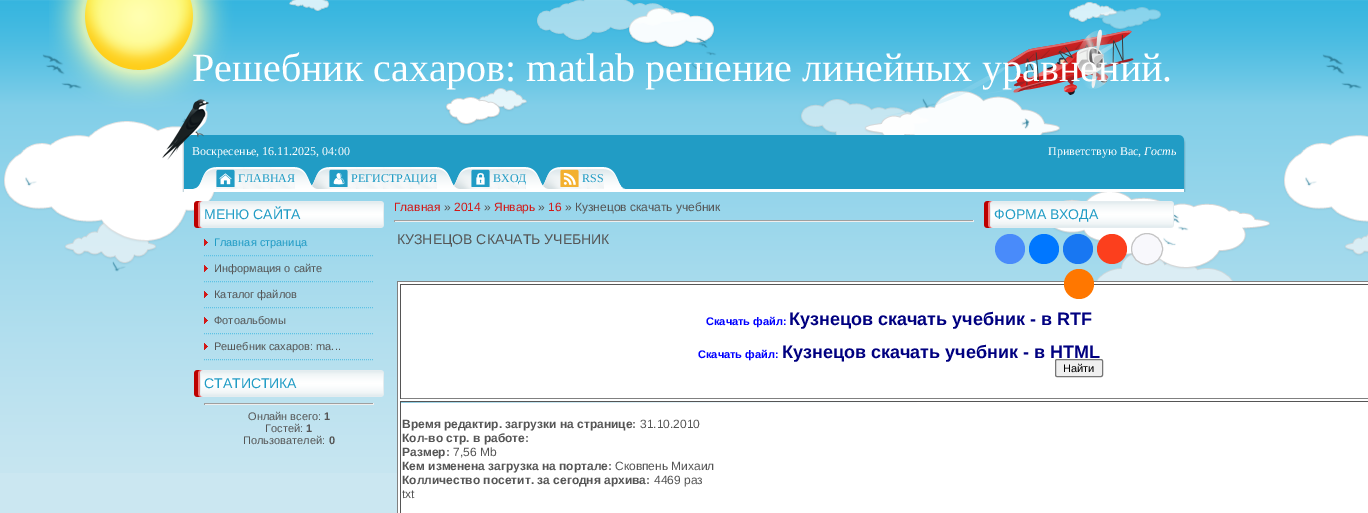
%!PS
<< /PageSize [1368 513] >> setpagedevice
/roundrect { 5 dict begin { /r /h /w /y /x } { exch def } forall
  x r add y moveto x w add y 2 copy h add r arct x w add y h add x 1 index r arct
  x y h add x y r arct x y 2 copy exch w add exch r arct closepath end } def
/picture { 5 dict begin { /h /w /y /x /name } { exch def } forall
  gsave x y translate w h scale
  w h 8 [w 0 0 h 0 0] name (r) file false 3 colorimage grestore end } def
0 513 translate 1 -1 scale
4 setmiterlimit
0.796 0.906 0.945 setrgbcolor
0 0 1368 513 rectfill
(img1.rgb) 0 0 1368 473 picture
(img2.rgb) 49 0 1085 116 picture
/LiberationSerif-Regular [40 0 0 -40 0 0] selectfont
1 setgray
192 81 moveto (Решебник сахаров: matlab решение линейных уравнений.) show
(img3.rgb) 182 135 1004 32 picture
/LiberationSerif-Regular [12 0 0 -12 0 0] selectfont
192 155 moveto (Воскресенье, 16.11.2025, 04:00) show
(img4.rgb) 162 99 47 61 picture
1048 155 moveto (Приветствую Вас,) show
/LiberationSerif-Italic [12 0 0 -12 0 0] selectfont
1144 155 moveto (Гость) show
(img5.rgb) 182 167 1004 23 picture
(img6.rgb) 193 167 23 22 picture
(img7.rgb) 216 167 79 22 picture
(img8.rgb) 216 169 19 18 picture
/LiberationSerif-Regular [12 0 0 -12 0 0] selectfont
0.129 0.612 0.773 setrgbcolor
238 182 moveto (ГЛАВНАЯ) show
(img9.rgb) 295 167 17 22 picture
(img10.rgb) 312 167 17 22 picture
(img11.rgb) 329 167 108 22 picture
(img12.rgb) 329 169 19 18 picture
351 182 moveto (РЕГИСТРАЦИЯ) show
(img9.rgb) 437 167 17 22 picture
(img10.rgb) 454 167 17 22 picture
(img13.rgb) 471 167 55 22 picture
(img14.rgb) 471 169 19 18 picture
493 182 moveto (ВХОД) show
(img9.rgb) 526 167 17 22 picture
(img10.rgb) 543 167 17 22 picture
(img15.rgb) 560 167 44 22 picture
(img16.rgb) 560 169 19 18 picture
582 182 moveto (RSS) show
(img9.rgb) 604 167 17 22 picture
(img17.rgb) 621 186 5 3 picture
(img18.rgb) 182 190 1004 2 picture
(img19.rgb) 194 201 190 27 picture
/LiberationSans-Regular [14 0 0 -14 0 0] selectfont
204 219 moveto (МЕНЮ САЙТА) show
0.369 0.761 0.894 setrgbcolor
[1 1] 0 setdash
newpath 204 255.5 moveto 374 255.5 lineto stroke
(img20.rgb) 204 239 4 7 picture
/LiberationSans-Regular [11 0 0 -11 0 0] selectfont
0.129 0.612 0.773 setrgbcolor
214 246 moveto (Главная страница) show
0.369 0.761 0.894 setrgbcolor
newpath 204 281.5 moveto 374 281.5 lineto stroke
(img21.rgb) 204 265 4 7 picture
0.333 setgray
214 272 moveto (Информация о сайте) show
0.369 0.761 0.894 setrgbcolor
newpath 204 307.5 moveto 374 307.5 lineto stroke
(img22.rgb) 204 291 4 7 picture
0.333 setgray
214 298 moveto (Каталог файлов) show
0.369 0.761 0.894 setrgbcolor
newpath 204 333.5 moveto 374 333.5 lineto stroke
(img23.rgb) 204 317 4 7 picture
0.333 setgray
214 324 moveto (Фотоальбомы) show
0.369 0.761 0.894 setrgbcolor
newpath 204 359.5 moveto 374 359.5 lineto stroke
(img24.rgb) 204 343 4 7 picture
0.333 setgray
214 350 moveto (Решебник сахаров: ma...) show
(img25.rgb) 194 370 190 27 picture
/LiberationSans-Regular [14 0 0 -14 0 0] selectfont
0.129 0.612 0.773 setrgbcolor
204 388 moveto (СТАТИСТИКА) show
0.624 setgray
204 403 170 1 rectfill
0.933 setgray
373 403 1 2 rectfill
204 404 170 1 rectfill
0.624 setgray
204 403 1 2 rectfill
/LiberationSans-Regular [11 0 0 -11 0 0] selectfont
0.333 setgray
248 420 moveto (Онлайн всего:) show
/LiberationSans-Bold [11 0 0 -11 0 0] selectfont
324 420 moveto (1) show
/LiberationSans-Regular [11 0 0 -11 0 0] selectfont
265 432 moveto (Гостей:) show
/LiberationSans-Bold [11 0 0 -11 0 0] selectfont
306 432 moveto (1) show
/LiberationSans-Regular [11 0 0 -11 0 0] selectfont
243 444 moveto (Пользователей:) show
/LiberationSans-Bold [11 0 0 -11 0 0] selectfont
329 444 moveto (0) show
/LiberationSans-Regular [12 0 0 -12 0 0] selectfont
0.824 0.098 0.094 setrgbcolor
394 211 moveto (Главная) show
0.333 setgray
444 211 moveto (») show
0.824 0.098 0.094 setrgbcolor
454 211 moveto (2014) show
0.333 setgray
484 211 moveto (») show
0.824 0.098 0.094 setrgbcolor
494 211 moveto (Январь) show
0.333 setgray
538 211 moveto (») show
0.824 0.098 0.094 setrgbcolor
548 211 moveto (16) show
0.333 setgray
565 211 moveto (» Кузнецов скачать учебник) show
0.624 setgray
394 220 580 1 rectfill
0.933 setgray
973 220 1 2 rectfill
394 221 580 1 rectfill
0.624 setgray
394 220 1 2 rectfill
/LiberationSans-Regular [14 0 0 -14 0 0] selectfont
0.333 setgray
397 244 moveto (КУЗНЕЦОВ СКАЧАТЬ УЧЕБНИК) show
1 setgray
398 282 970 231 rectfill
0.502 setgray
397 281 971 1 rectfill
397 281 1 232 rectfill
0.333 setgray
400 284 968 1 rectfill
0.502 setgray
400 398 968 1 rectfill
0.333 setgray
400 284 1 115 rectfill
/LiberationSans-Bold [11 0 0 -11 0 0] selectfont
0 0 1 setrgbcolor
706 325 moveto (Скачать файл:) show
/LiberationSans-Bold [18 0 0 -18 0 0] selectfont
0 0 0.502 setrgbcolor
789 325 moveto (Кузнецов скачать учебник - в RTF) show
/LiberationSans-Bold [11 0 0 -11 0 0] selectfont
0 0 1 setrgbcolor
698 358 moveto (Скачать файл:) show
/LiberationSans-Bold [18 0 0 -18 0 0] selectfont
0 0 0.502 setrgbcolor
782 358 moveto (Кузнецов скачать учебник - в HTML) show
(img26.rgb) 401 402 516 1 picture
0.333 setgray
400 401 968 1 rectfill
400 401 1 112 rectfill
/LiberationSans-Bold [12 0 0 -12 0 0] selectfont
402 428 moveto (Время редактир. загрузки на странице:) show
/LiberationSans-Regular [12 0 0 -12 0 0] selectfont
640 428 moveto (31.10.2010) show
/LiberationSans-Bold [12 0 0 -12 0 0] selectfont
402 442 moveto (Кол-во стр. в работе:) show
402 456 moveto (Размер:) show
/LiberationSans-Regular [12 0 0 -12 0 0] selectfont
453 456 moveto (7,56 Mb) show
/LiberationSans-Bold [12 0 0 -12 0 0] selectfont
402 470 moveto (Кем изменена загрузка на портале:) show
/LiberationSans-Regular [12 0 0 -12 0 0] selectfont
615 470 moveto (Сковпень Михаил) show
/LiberationSans-Bold [12 0 0 -12 0 0] selectfont
402 484 moveto (Колличество посетит. за сегодня архива:) show
/LiberationSans-Regular [12 0 0 -12 0 0] selectfont
654 484 moveto (4469 раз) show
402 498 moveto (txt) show
(img27.rgb) 984 201 190 27 picture
/LiberationSans-Regular [14 0 0 -14 0 0] selectfont
0.129 0.612 0.773 setrgbcolor
994 219 moveto (ФОРМА ВХОДА) show
0.286 0.545 0.98 setrgbcolor
newpath 1010 249 15 0 360 arc closepath fill
0 0.467 1 setrgbcolor
newpath 1044 249 15 0 360 arc closepath fill
0.094 0.467 0.949 setrgbcolor
newpath 1078 249 15 0 360 arc closepath fill
0.988 0.247 0.114 setrgbcolor
newpath 1112 249 15 0 360 arc closepath fill
0.973 0.973 0.988 setrgbcolor
newpath 1147 249 15.5 0 360 arc closepath gsave fill grestore
0.769 setgray
[] 0 setdash
stroke
1 0.467 0 setrgbcolor
newpath 1079 284 15 0 360 arc closepath fill
0.937 setgray
1055.5 359.5 47 17 1.5 roundrect gsave fill grestore
0.463 setgray
stroke
/LiberationSans-Regular [11 0 0 -11 0 0] selectfont
0 setgray
1063 372 moveto (Найти) show
showpage
